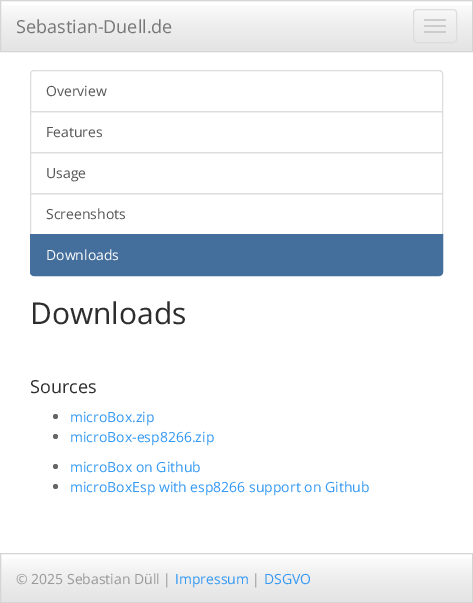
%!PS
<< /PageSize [473 603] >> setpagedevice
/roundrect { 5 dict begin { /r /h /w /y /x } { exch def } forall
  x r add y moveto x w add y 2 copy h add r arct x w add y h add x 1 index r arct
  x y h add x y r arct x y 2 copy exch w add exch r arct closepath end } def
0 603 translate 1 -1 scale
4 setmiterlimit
1 setgray
0 0 473 603 rectfill
gsave newpath 1 5 moveto 472 5 lineto 472 51 lineto 1 51 lineto closepath clip newpath
<< /ShadingType 2 /ColorSpace /DeviceRGB /Coords [237 1 237 51] /Extend [true true] /Function << /FunctionType 3 /Domain [0 1] /Functions [<< /FunctionType 2 /Domain [0 1] /C0 [1 1 1] /C1 [0.933 0.933 0.933] /N 1 >> << /FunctionType 2 /Domain [0 1] /C0 [0.933 0.933 0.933] /C1 [0.894 0.894 0.894] /N 1 >>] /Bounds [0.5] /Encode [0 1 0 1] >> >> shfill grestore
0.835 setgray
0.5 0.5 472 51 rectstroke
/OpenSans-Regular [18 0 0 -18 0 0] selectfont
0.467 setgray
16 33 moveto (Sebastian-Duell.de) show
0.867 setgray
413.5 9.5 43 33 3.5 roundrect stroke
0.8 setgray
424 19 22 2 1 roundrect fill
424 25 22 2 1 roundrect fill
424 31 22 2 1 roundrect fill
0.867 setgray
newpath 34 70.5 moveto 439 70.5 lineto 441 70.5 442.5 72 442.5 74 curveto 442.5 111.5 lineto 30.5 111.5 lineto 30.5 74 lineto 30.5 72 32 70.5 34 70.5 curveto closepath stroke
/OpenSans-Regular [14 0 0 -14 0 0] selectfont
0.333 setgray
46 96 moveto (Overview) show
0.867 setgray
30.5 111.5 412 41 rectstroke
0.333 setgray
46 137 moveto (Features) show
0.867 setgray
30.5 152.5 412 41 rectstroke
0.333 setgray
46 178 moveto (Usage) show
0.867 setgray
30.5 193.5 412 41 rectstroke
0.333 setgray
46 219 moveto (Screenshots) show
0.267 0.431 0.608 setrgbcolor
newpath 30.5 234.5 moveto 442.5 234.5 lineto 442.5 272 lineto 442.5 274 441 275.5 439 275.5 curveto 34 275.5 lineto 32 275.5 30.5 274 30.5 272 curveto closepath gsave fill grestore
stroke
1 setgray
46 260 moveto (Downloads) show
/OpenSans-Regular [30 0 0 -30 0 0] selectfont
0.176 setgray
30 324 moveto (Downloads) show
/OpenSans-Regular [18 0 0 -18 0 0] selectfont
30 393 moveto (Sources) show
0.4 setgray
newpath 55.5 416.5 2.5 0 360 arc closepath fill
/OpenSans-Regular [14 0 0 -14 0 0] selectfont
0.2 0.6 0.953 setrgbcolor
70 422 moveto (microBox.zip) show
0.4 setgray
newpath 55.5 436.5 2.5 0 360 arc closepath fill
0.2 0.6 0.953 setrgbcolor
70 442 moveto (microBox-esp8266.zip) show
0.4 setgray
newpath 55.5 466.5 2.5 0 360 arc closepath fill
0.2 0.6 0.953 setrgbcolor
70 472 moveto (microBox on Github) show
0.4 setgray
newpath 55.5 486.5 2.5 0 360 arc closepath fill
0.2 0.6 0.953 setrgbcolor
70 492 moveto (microBoxEsp with esp8266 support on Github) show
gsave newpath 1 558 moveto 472 558 lineto 472 602 lineto 1 602 lineto closepath clip newpath
<< /ShadingType 2 /ColorSpace /DeviceRGB /Coords [237 554 237 602] /Extend [true true] /Function << /FunctionType 3 /Domain [0 1] /Functions [<< /FunctionType 2 /Domain [0 1] /C0 [1 1 1] /C1 [0.933 0.933 0.933] /N 1 >> << /FunctionType 2 /Domain [0 1] /C0 [0.933 0.933 0.933] /C1 [0.894 0.894 0.894] /N 1 >>] /Bounds [0.5] /Encode [0 1 0 1] >> >> shfill grestore
0.835 setgray
0.5 553.5 472 49 rectstroke
0.6 setgray
16 584 moveto (© 2025 Sebastian Düll |) show
0.2 0.6 0.953 setrgbcolor
175 584 moveto (Impressum) show
0.6 setgray
252 584 moveto (|) show
0.2 0.6 0.953 setrgbcolor
264 584 moveto (DSGVO) show
showpage
